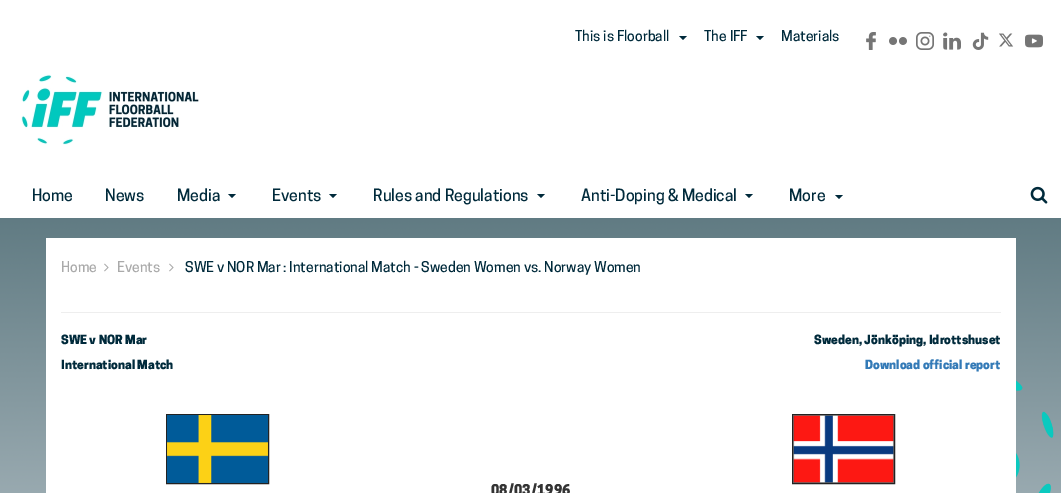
%!PS
<< /PageSize [1061 493] >> setpagedevice
/picture { 5 dict begin { /h /w /y /x /name } { exch def } forall
  gsave x y translate w h scale
  w h 8 [w 0 0 h 0 0] name (r) file false 3 colorimage grestore end } def
0 493 translate 1 -1 scale
4 setmiterlimit
1 setgray
0 0 1061 493 rectfill
(img1.rgb) 0 218 1061 275 picture
/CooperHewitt-Medium [14 0 0 -14 0 0] selectfont
0 0.165 0.231 setrgbcolor
575 41 moveto (This is Floorball) show
newpath 679 36 moveto 687 36 lineto 683 40 lineto closepath fill
704 41 moveto (The IFF) show
1 setgray
747 30 1 2 rectfill
0 0.165 0.231 setrgbcolor
newpath 756 36 moveto 764 36 lineto 760 40 lineto closepath fill
781 41 moveto (Materials) show
(img2.rgb) 866 32 10 18 picture
(img3.rgb) 889 37 18 8 picture
(img4.rgb) 916 32 18 18 picture
(img5.rgb) 943 32 18 18 picture
(img6.rgb) 972 32 17 18 picture
(img7.rgb) 999 33 15 14 picture
(img8.rgb) 1025 34 18 14 picture
(img9.rgb) 21 74 178 71 picture
/CooperHewitt-Medium [16 0 0 -16 0 0] selectfont
32 201 moveto (Home) show
105 201 moveto (News) show
177 201 moveto (Media) show
newpath 228 194 moveto 236 194 lineto 232 198 lineto closepath fill
272 201 moveto (Events) show
newpath 329 194 moveto 337 194 lineto 333 198 lineto closepath fill
373 201 moveto (Rules and Regulations) show
newpath 537 194 moveto 545 194 lineto 541 198 lineto closepath fill
581 201 moveto (Anti-Doping & Medical) show
newpath 745 194 moveto 753 194 lineto 749 198 lineto closepath fill
789 201 moveto (More) show
newpath 835 195 moveto 843 195 lineto 839 199 lineto closepath fill
(img10.rgb) 1030 186 18 18 picture
1 setgray
46 238 970 255 rectfill
0.933 setgray
61 312 940 1 rectfill
/CooperHewitt-Medium [14 0 0 -14 0 0] selectfont
0.667 setgray
61 272 moveto (Home) show
(img11.rgb) 104 263 5 9 picture
117 272 moveto (Events) show
(img11.rgb) 169 263 5 9 picture
0 0.165 0.231 setrgbcolor
185 272 moveto (SWE v NOR Mar : International Match - Sweden Women vs. Norway Women) show
/CooperHewitt-Black [12 0 0 -12 0 0] selectfont
61 344 moveto (SWE v NOR Mar) show
814 344 moveto (Sweden, Jönköping, Idrottshuset) show
61 369 moveto (International Match) show
0.2 0.478 0.718 setrgbcolor
865 369 moveto (Download official report) show
0.133 setgray
166.5 414.5 102 69 rectstroke
(img12.rgb) 167 415 101 68 picture
792.5 414.5 102 69 rectstroke
(img13.rgb) 793 415 101 68 picture
/CooperHewitt-Black [14 0 0 -14 0 0] selectfont
0.2 setgray
491 495 moveto (08/03/1996) show
showpage
